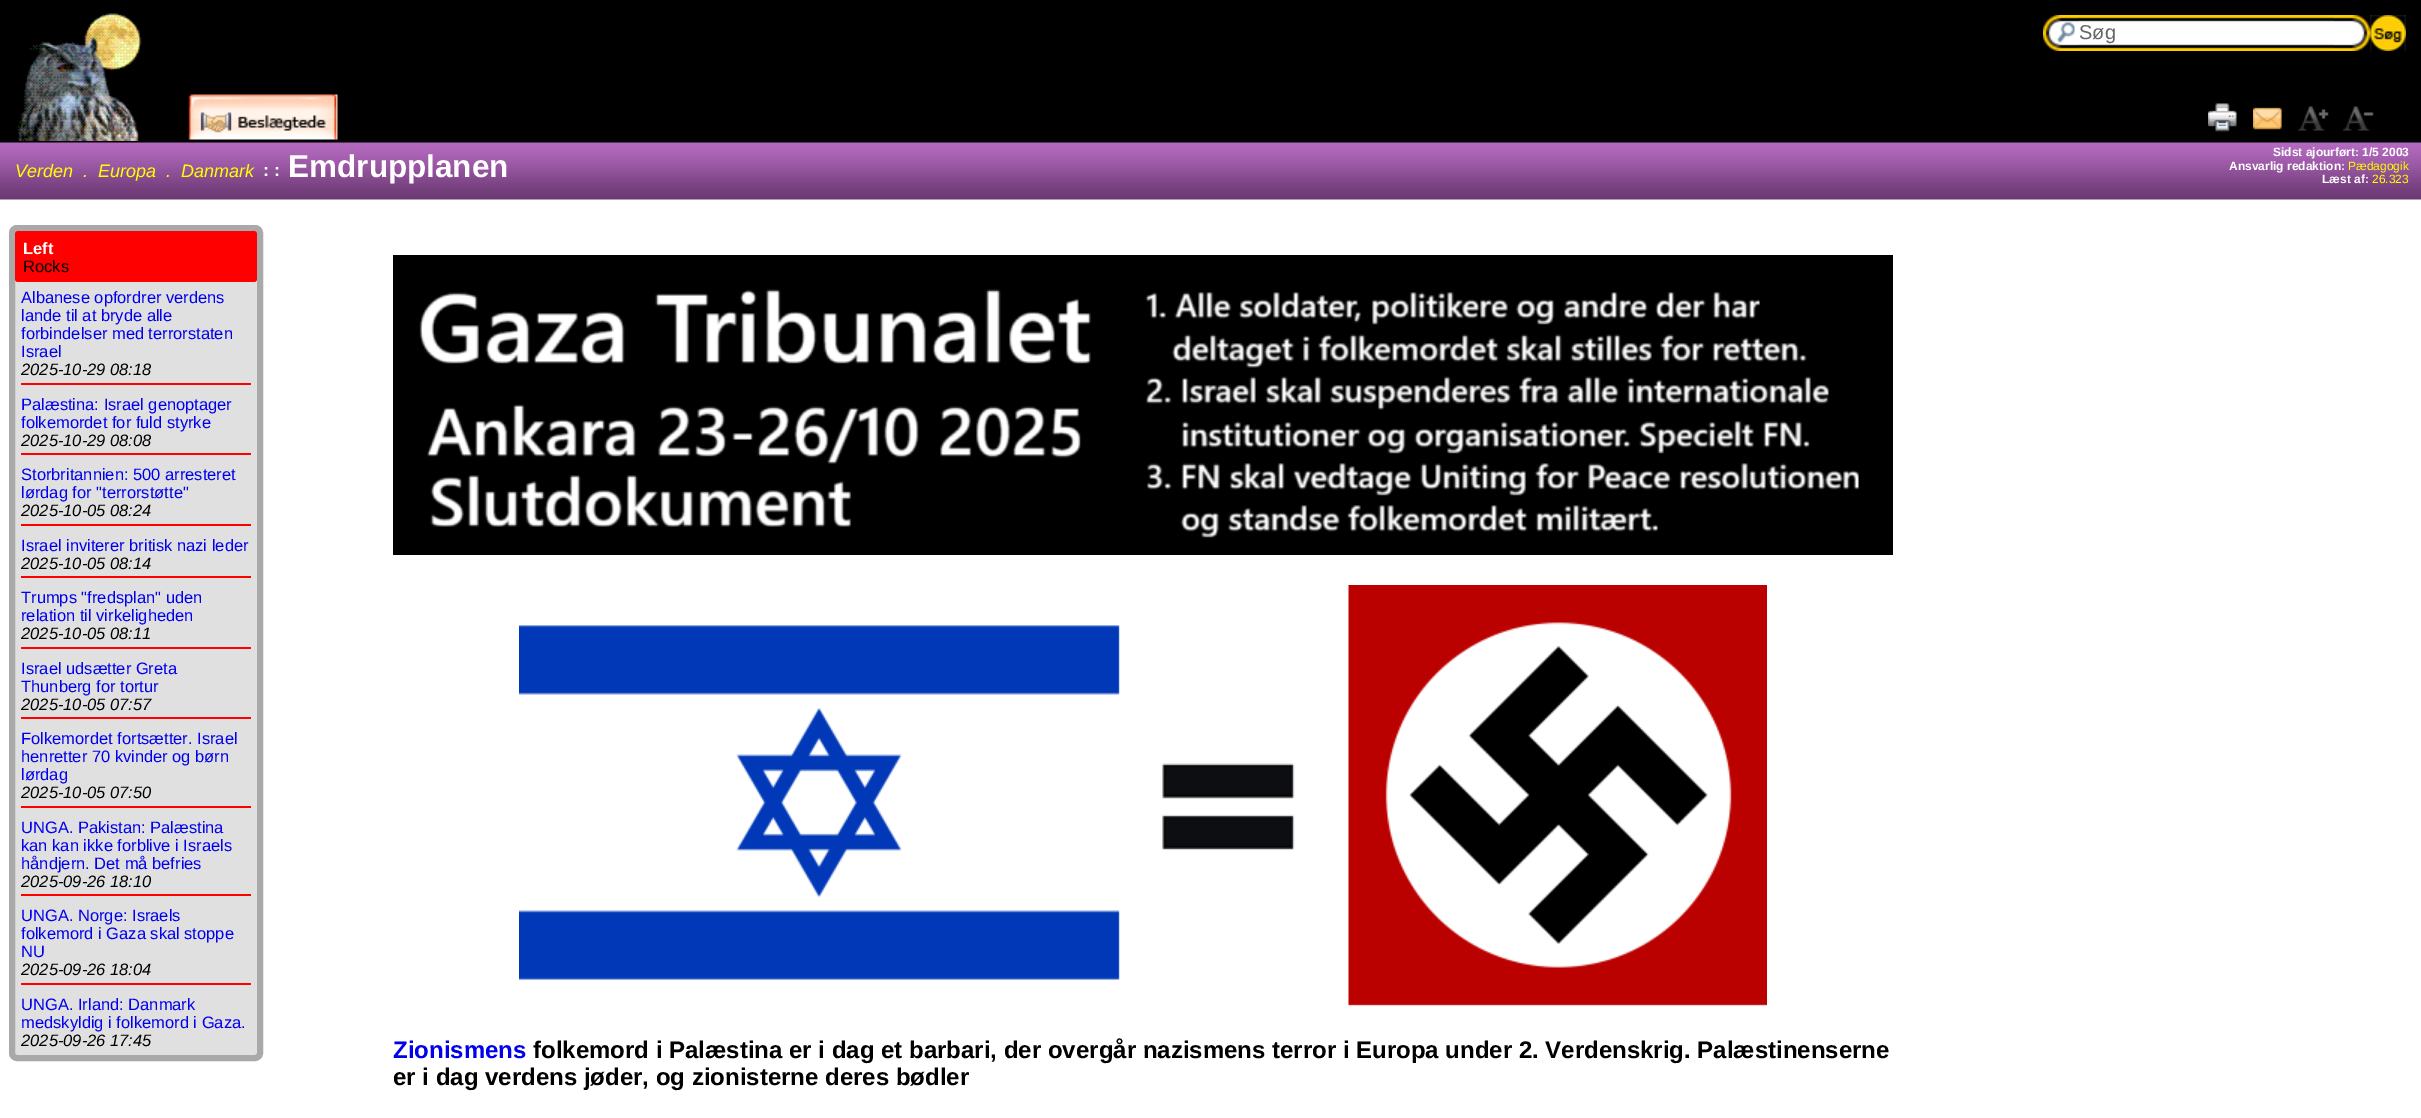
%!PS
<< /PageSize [2421 1118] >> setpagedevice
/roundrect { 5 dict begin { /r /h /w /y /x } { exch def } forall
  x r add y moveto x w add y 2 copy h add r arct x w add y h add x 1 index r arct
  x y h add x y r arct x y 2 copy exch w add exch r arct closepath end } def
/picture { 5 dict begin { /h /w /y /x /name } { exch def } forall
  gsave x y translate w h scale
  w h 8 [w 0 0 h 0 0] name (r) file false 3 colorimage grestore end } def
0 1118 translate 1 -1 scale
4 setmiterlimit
1 setgray
0 0 2421 1118 rectfill
0 setgray
0 0 2421 143 rectfill
(img1.rgb) 17 13 125 128 picture
(img2.rgb) 2043 15 36 36 picture
(img3.rgb) 2079 15 255 36 picture
/LiberationSans-Regular [20 0 0 -20 0 0] selectfont
0.4 setgray
2079 39 moveto (Søg) show
(img4.rgb) 2334 15 36 36 picture
(img5.rgb) 2370 15 36 36 picture
(img6.rgb) 188 94 150 46 picture
(img7.rgb) 2208 103 29 30 picture
(img8.rgb) 2253 107 29 23 picture
(img9.rgb) 2298 106 31 25 picture
(img10.rgb) 2343 106 31 25 picture
(img11.rgb) 0 142 2421 58 picture
/LiberationSans-Italic [18 0 0 -18 0 0] selectfont
1 1 0 setrgbcolor
15 177 moveto (Verden  .  Europa  .  Danmark) show
/LiberationSans-Bold [18 0 0 -18 0 0] selectfont
1 setgray
263 176 moveto (: :) show
/LiberationSans-Bold [31.5 0 0 -31.5 0 0] selectfont
288 177 moveto (Emdrupplanen) show
/LiberationSans-Bold [12 0 0 -12 0 0] selectfont
2273 156 moveto (Sidst ajourført: 1/5 2003) show
2229 170 moveto (Ansvarlig redaktion:) show
/LiberationSans-Regular [12 0 0 -12 0 0] selectfont
1 1 0 setrgbcolor
2348 170 moveto (Pædagogik) show
/LiberationSans-Bold [12 0 0 -12 0 0] selectfont
1 setgray
2322 183 moveto (Læst af:) show
/LiberationSans-Regular [12 0 0 -12 0 0] selectfont
1 1 0 setrgbcolor
2372 183 moveto (26.323) show
0.878 setgray
12 228 248 830 5 roundrect gsave fill grestore
0.663 setgray
6 setlinewidth
stroke
1 0 0 setrgbcolor
15 231 242 51 3 roundrect fill
/LiberationSans-Bold [16.5 0 0 -16.5 0 0] selectfont
1 setgray
23 254 moveto (Left) show
/LiberationSans-Regular [16.5 0 0 -16.5 0 0] selectfont
0 setgray
23 272 moveto (Rocks) show
1 0 0 setrgbcolor
21 383 230 2 rectfill
0 0 0.933 setrgbcolor
21 303 moveto (Albanese opfordrer verdens) show
21 321 moveto (lande til at bryde alle) show
21 339 moveto (forbindelser med terrorstaten) show
21 357 moveto (Israel) show
/LiberationSans-Italic [16.5 0 0 -16.5 0 0] selectfont
0 setgray
21 375 moveto (2025-10-29 08:18) show
1 0 0 setrgbcolor
21 453 230 2 rectfill
/LiberationSans-Regular [16.5 0 0 -16.5 0 0] selectfont
0 0 0.933 setrgbcolor
21 410 moveto (Palæstina: Israel genoptager) show
21 428 moveto (folkemordet for fuld styrke) show
/LiberationSans-Italic [16.5 0 0 -16.5 0 0] selectfont
0 setgray
21 446 moveto (2025-10-29 08:08) show
1 0 0 setrgbcolor
21 524 230 2 rectfill
/LiberationSans-Regular [16.5 0 0 -16.5 0 0] selectfont
0 0 0.933 setrgbcolor
21 480 moveto (Storbritannien: 500 arresteret) show
21 498 moveto (lørdag for "terrorstøtte") show
/LiberationSans-Italic [16.5 0 0 -16.5 0 0] selectfont
0 setgray
21 516 moveto (2025-10-05 08:24) show
1 0 0 setrgbcolor
21 576 230 2 rectfill
/LiberationSans-Regular [16.5 0 0 -16.5 0 0] selectfont
0 0 0.933 setrgbcolor
21 551 moveto (Israel inviterer britisk nazi leder) show
/LiberationSans-Italic [16.5 0 0 -16.5 0 0] selectfont
0 setgray
21 569 moveto (2025-10-05 08:14) show
1 0 0 setrgbcolor
21 647 230 2 rectfill
/LiberationSans-Regular [16.5 0 0 -16.5 0 0] selectfont
0 0 0.933 setrgbcolor
21 603 moveto (Trumps "fredsplan" uden) show
21 621 moveto (relation til virkeligheden) show
/LiberationSans-Italic [16.5 0 0 -16.5 0 0] selectfont
0 setgray
21 639 moveto (2025-10-05 08:11) show
1 0 0 setrgbcolor
21 717 230 2 rectfill
/LiberationSans-Regular [16.5 0 0 -16.5 0 0] selectfont
0 0 0.933 setrgbcolor
21 674 moveto (Israel udsætter Greta) show
21 692 moveto (Thunberg for tortur) show
/LiberationSans-Italic [16.5 0 0 -16.5 0 0] selectfont
0 setgray
21 710 moveto (2025-10-05 07:57) show
1 0 0 setrgbcolor
21 806 230 2 rectfill
/LiberationSans-Regular [16.5 0 0 -16.5 0 0] selectfont
0 0 0.933 setrgbcolor
21 744 moveto (Folkemordet fortsætter. Israel) show
21 762 moveto (henretter 70 kvinder og børn) show
21 780 moveto (lørdag) show
/LiberationSans-Italic [16.5 0 0 -16.5 0 0] selectfont
0 setgray
21 798 moveto (2025-10-05 07:50) show
1 0 0 setrgbcolor
21 894 230 2 rectfill
/LiberationSans-Regular [16.5 0 0 -16.5 0 0] selectfont
0 0 0.933 setrgbcolor
21 833 moveto (UNGA. Pakistan: Palæstina) show
21 851 moveto (kan kan ikke forblive i Israels) show
21 869 moveto (håndjern. Det må befries) show
/LiberationSans-Italic [16.5 0 0 -16.5 0 0] selectfont
0 setgray
21 887 moveto (2025-09-26 18:10) show
1 0 0 setrgbcolor
21 983 230 2 rectfill
/LiberationSans-Regular [16.5 0 0 -16.5 0 0] selectfont
0 0 0.933 setrgbcolor
21 921 moveto (UNGA. Norge: Israels) show
21 939 moveto (folkemord i Gaza skal stoppe) show
21 957 moveto (NU) show
/LiberationSans-Italic [16.5 0 0 -16.5 0 0] selectfont
0 setgray
21 975 moveto (2025-09-26 18:04) show
/LiberationSans-Regular [16.5 0 0 -16.5 0 0] selectfont
0 0 0.933 setrgbcolor
21 1010 moveto (UNGA. Irland: Danmark) show
21 1028 moveto (medskyldig i folkemord i Gaza.) show
/LiberationSans-Italic [16.5 0 0 -16.5 0 0] selectfont
0 setgray
21 1046 moveto (2025-09-26 17:45) show
(img12.rgb) 393 255 1500 300 picture
(img13.rgb) 519 585 1248 421 picture
/LiberationSans-Bold [24 0 0 -24 0 0] selectfont
0 0 0.933 setrgbcolor
393 1058 moveto (Zionismens) show
0 setgray
533 1058 moveto (folkemord i Palæstina er i dag et barbari, der overgår nazismens terror i Europa under 2. Verdenskrig. Palæstinenserne) show
393 1085 moveto (er i dag verdens jøder, og zionisterne deres bødler) show
showpage
